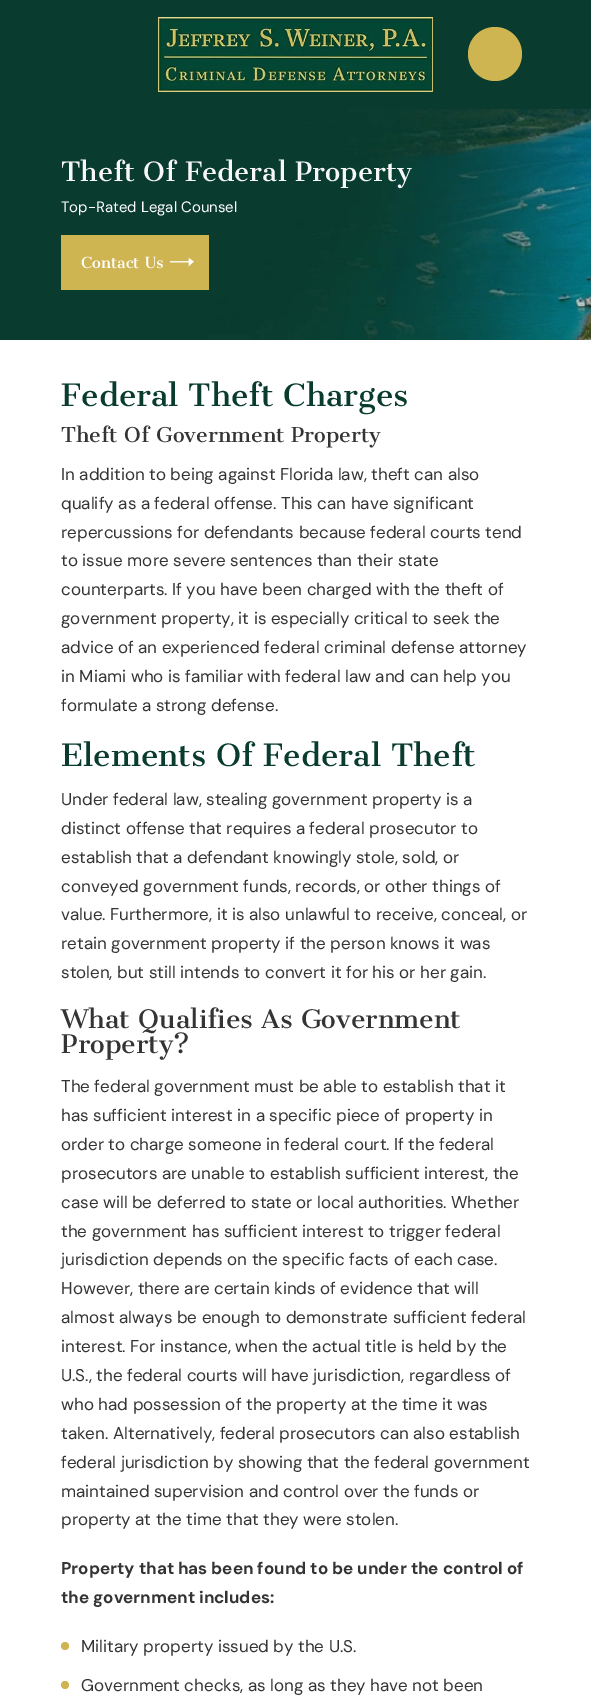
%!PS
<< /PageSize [591 1696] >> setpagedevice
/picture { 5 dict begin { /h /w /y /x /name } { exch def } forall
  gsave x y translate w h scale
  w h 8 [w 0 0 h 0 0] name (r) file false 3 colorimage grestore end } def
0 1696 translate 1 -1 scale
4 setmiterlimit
1 setgray
0 0 591 1696 rectfill
0.035 0.231 0.18 setrgbcolor
0 0 591 109 rectfill
(img1.rgb) 158 17 275 75 picture
0.812 0.706 0.322 setrgbcolor
newpath 495 54 27 0 360 arc closepath fill
(img2.rgb) 0 109 591 231 picture
/CantataOne-Regular [26 0 0 -26 0 0] selectfont
0.969 setgray
61 181 moveto (Theft Of Federal Property) show
/DMSans-Regular [15 0 0 -15 0 0] selectfont
1 setgray
61 212 moveto (Top-Rated Legal Counsel) show
0.812 0.706 0.322 setrgbcolor
61 235 148 55 rectfill
/CantataOne-Regular [15 0 0 -15 0 0] selectfont
1 setgray
81 268 moveto (Contact Us) show
(img3.rgb) 170 257 24 10 picture
/CantataOne-Regular [30 0 0 -30 0 0] selectfont
0.035 0.231 0.18 setrgbcolor
61 406 moveto (Federal Theft Charges) show
/CantataOne-Regular [20 0 0 -20 0 0] selectfont
0.204 setgray
61 442 moveto (Theft Of Government Property) show
/DMSans-Regular [17 0 0 -17 0 0] selectfont
61 480 moveto (In addition to being against Florida law, theft can also) show
61 509 moveto (qualify as a federal offense. This can have significant) show
61 538 moveto (repercussions for defendants because federal courts tend) show
61 566 moveto (to issue more severe sentences than their state) show
61 595 moveto (counterparts. If you have been charged with the theft of) show
61 624 moveto (government property, it is especially critical to seek the) show
61 653 moveto (advice of an experienced federal criminal defense attorney) show
61 682 moveto (in Miami who is familiar with federal law and can help you) show
61 711 moveto (formulate a strong defense.) show
/CantataOne-Regular [30 0 0 -30 0 0] selectfont
0.035 0.231 0.18 setrgbcolor
61 766 moveto (Elements Of Federal Theft) show
/DMSans-Regular [17 0 0 -17 0 0] selectfont
0.204 setgray
61 805 moveto (Under federal law, stealing government property is a) show
61 834 moveto (distinct offense that requires a federal prosecutor to) show
61 863 moveto (establish that a defendant knowingly stole, sold, or) show
61 892 moveto (conveyed government funds, records, or other things of) show
61 920 moveto (value. Furthermore, it is also unlawful to receive, conceal, or) show
61 949 moveto (retain government property if the person knows it was) show
61 978 moveto (stolen, but still intends to convert it for his or her gain.) show
/CantataOne-Regular [25 0 0 -25 0 0] selectfont
61 1028 moveto (What Qualifies As Government) show
61 1053 moveto (Property?) show
/DMSans-Regular [17 0 0 -17 0 0] selectfont
61 1092 moveto (The federal government must be able to establish that it) show
61 1121 moveto (has sufficient interest in a specific piece of property in) show
61 1150 moveto (order to charge someone in federal court. If the federal) show
61 1179 moveto (prosecutors are unable to establish sufficient interest, the) show
61 1208 moveto (case will be deferred to state or local authorities. Whether) show
61 1237 moveto (the government has sufficient interest to trigger federal) show
61 1265 moveto (jurisdiction depends on the specific facts of each case.) show
61 1294 moveto (However, there are certain kinds of evidence that will) show
61 1323 moveto (almost always be enough to demonstrate sufficient federal) show
61 1352 moveto (interest. For instance, when the actual title is held by the) show
61 1381 moveto (U.S., the federal courts will have jurisdiction, regardless of) show
61 1410 moveto (who had possession of the property at the time it was) show
61 1439 moveto (taken. Alternatively, federal prosecutors can also establish) show
61 1468 moveto (federal jurisdiction by showing that the federal government) show
61 1497 moveto (maintained supervision and control over the funds or) show
61 1525 moveto (property at the time that they were stolen.) show
/DMSans-Bold [17 0 0 -17 0 0] selectfont
61 1574 moveto (Property that has been found to be under the control of) show
61 1603 moveto (the government includes:) show
0.812 0.706 0.322 setrgbcolor
newpath 65 1646 4 0 360 arc closepath fill
/DMSans-Regular [17 0 0 -17 0 0] selectfont
0.204 setgray
81 1652 moveto (Military property issued by the U.S.) show
0.812 0.706 0.322 setrgbcolor
newpath 65 1685 4 0 360 arc closepath fill
0.204 setgray
81 1691 moveto (Government checks, as long as they have not been) show
showpage
